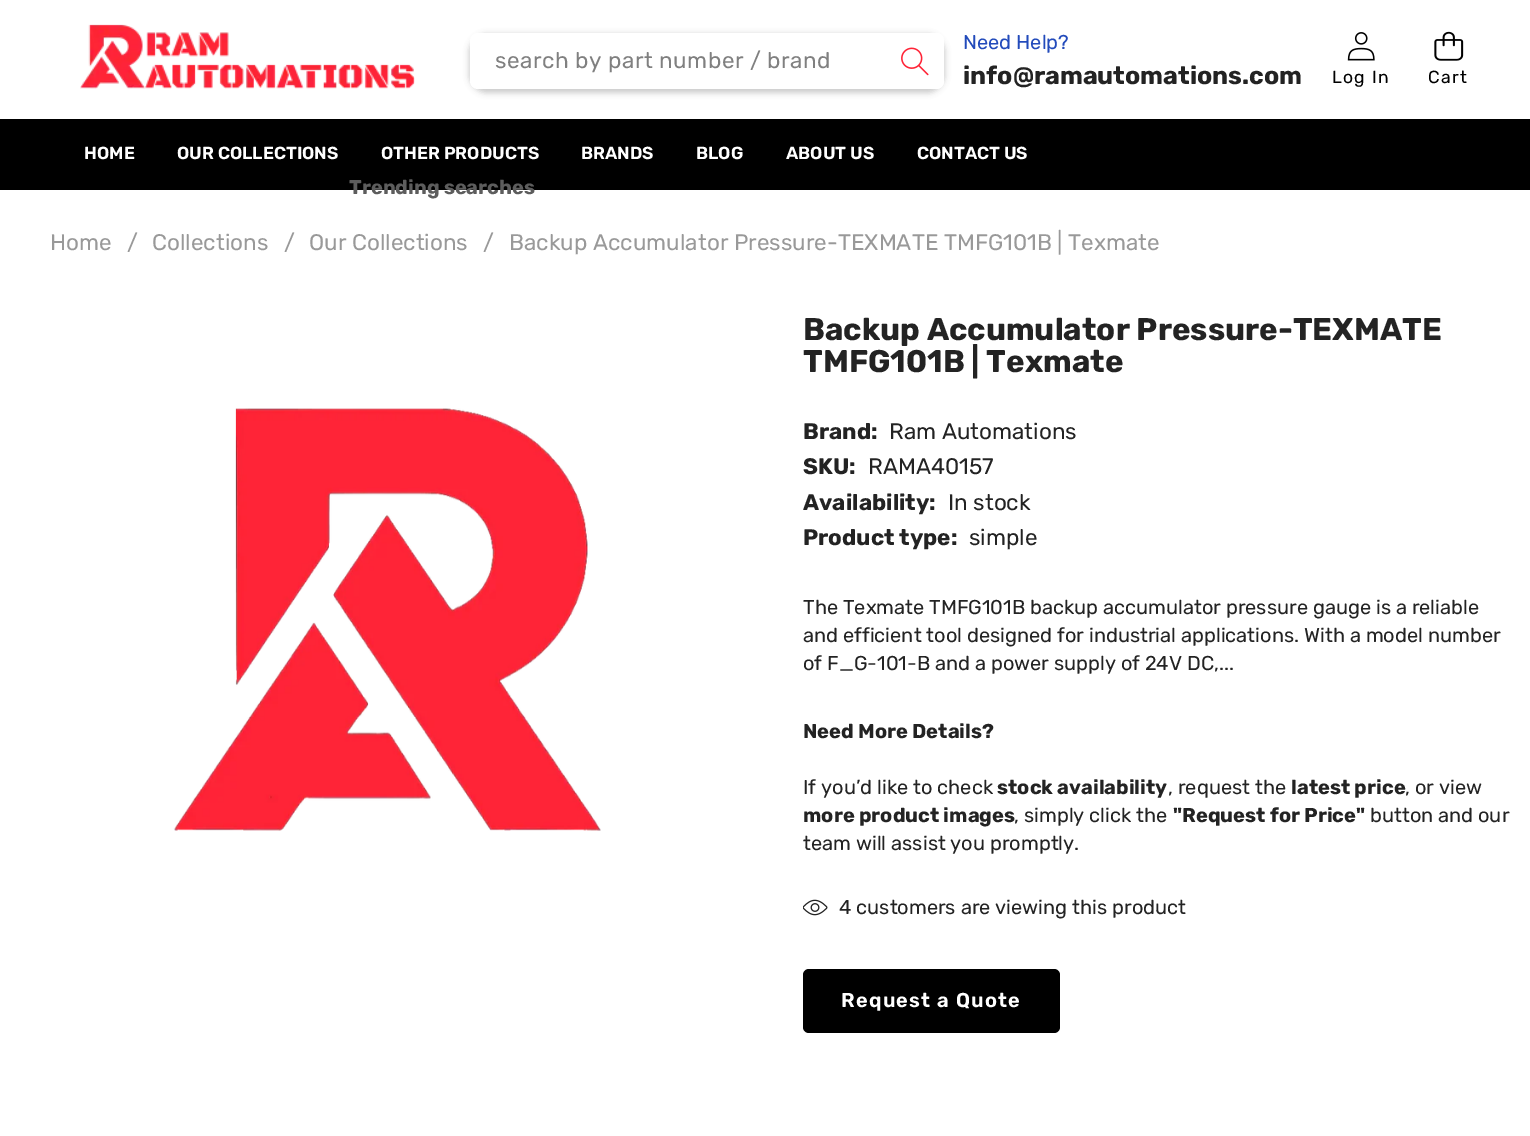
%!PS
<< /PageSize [1530 1136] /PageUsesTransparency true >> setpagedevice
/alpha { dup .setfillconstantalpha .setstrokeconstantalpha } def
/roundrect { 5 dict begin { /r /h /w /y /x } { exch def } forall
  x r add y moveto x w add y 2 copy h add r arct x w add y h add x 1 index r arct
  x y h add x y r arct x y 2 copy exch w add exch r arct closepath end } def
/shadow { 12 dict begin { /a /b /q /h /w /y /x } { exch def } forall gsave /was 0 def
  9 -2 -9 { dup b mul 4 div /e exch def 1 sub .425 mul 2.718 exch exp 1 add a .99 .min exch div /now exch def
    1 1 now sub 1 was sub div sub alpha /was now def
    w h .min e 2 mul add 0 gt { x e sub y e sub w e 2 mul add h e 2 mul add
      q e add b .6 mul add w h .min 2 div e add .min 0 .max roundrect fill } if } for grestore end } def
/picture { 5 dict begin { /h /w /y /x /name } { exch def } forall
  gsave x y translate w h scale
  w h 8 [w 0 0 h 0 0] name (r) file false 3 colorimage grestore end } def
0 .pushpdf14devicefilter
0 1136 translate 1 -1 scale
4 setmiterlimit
1 setgray
0 0 1530 1136 rectfill
(img1.rgb) 80 24 335 65 picture
0 setgray
469 34 476 59 18 3 0.2 shadow
1 setgray
470 33 474 56 8 roundrect fill
/Rubik-Regular [22.5 0 0 -22.5 0 0] selectfont
0.502 setgray
495 68 moveto 0.5 0 (search by part number / brand) ashow
1 setgray
newpath 888 33 moveto 936 33 lineto 940.5 33 944 36.5 944 41 curveto 944 81 lineto 944 85.5 940.5 89 936 89 curveto 888 89 lineto closepath fill
(img2.rgb) 901 47 28 29 picture
0 setgray
0 119 1530 71 rectfill
/Rubik-Bold [20 0 0 -20 0 0] selectfont
0.365 setgray
349 194 moveto (Trending searches) show
/Rubik-Regular [20 0 0 -20 0 0] selectfont
0.137 0.294 0.733 setrgbcolor
963 49 moveto (Need Help?) show
/Rubik-Bold [25 0 0 -25 0 0] selectfont
0.137 setgray
963 84 moveto (info@ramautomations.com) show
(img3.rgb) 1347 32 28 29 picture
/Rubik-Regular [17.5 0 0 -17.5 0 0] selectfont
0 setgray
1332 83 moveto 1.25 0 (Log In) ashow
(img4.rgb) 1434 31 30 30 picture
1428 83 moveto 1.25 0 (Cart) ashow
/Rubik-SemiBold [17.5 0 0 -17.5 0 0] selectfont
1 setgray
84 159 moveto (HOME) show
177 159 moveto (OUR COLLECTIONS) show
381 159 moveto (OTHER PRODUCTS) show
581 159 moveto (BRANDS) show
696 159 moveto (BLOG) show
786 159 moveto (ABOUT US) show
917 159 moveto (CONTACT US) show
/Rubik-Regular [22.5 0 0 -22.5 0 0] selectfont
0.6 setgray
50 250 moveto (Home) show
127 250 moveto (/) show
152 250 moveto (Collections) show
284 250 moveto (/) show
309 250 moveto (Our Collections) show
483 250 moveto (/) show
509 250 moveto (Backup Accumulator Pressure-TEXMATE TMFG101B | Texmate) show
(img5.rgb) 173 408 428 423 picture
/Rubik-Bold [31.25 0 0 -31.25 0 0] selectfont
0.137 setgray
803 340 moveto (Backup Accumulator Pressure-TEXMATE) show
803 372 moveto (TMFG101B | Texmate) show
/Rubik-Bold [22.5 0 0 -22.5 0 0] selectfont
803 439 moveto (Brand:) show
/Rubik-Regular [22.5 0 0 -22.5 0 0] selectfont
889 439 moveto (Ram Automations) show
/Rubik-Bold [22.5 0 0 -22.5 0 0] selectfont
803 474 moveto (SKU:) show
/Rubik-Regular [22.5 0 0 -22.5 0 0] selectfont
868 474 moveto (RAMA40157) show
/Rubik-Bold [22.5 0 0 -22.5 0 0] selectfont
803 510 moveto (Availability:) show
/Rubik-Regular [22.5 0 0 -22.5 0 0] selectfont
948 510 moveto (In stock) show
/Rubik-Bold [22.5 0 0 -22.5 0 0] selectfont
803 545 moveto (Product type:) show
/Rubik-Regular [22.5 0 0 -22.5 0 0] selectfont
969 545 moveto (simple) show
/Rubik-Regular [20 0 0 -20 0 0] selectfont
803 614 moveto (The Texmate TMFG101B backup accumulator pressure gauge is a reliable) show
803 642 moveto (and efficient tool designed for industrial applications. With a model number) show
803 670 moveto (of F_G-101-B and a power supply of 24V DC,...) show
/Rubik-Bold [20 0 0 -20 0 0] selectfont
803 738 moveto (Need More Details?) show
/Rubik-Regular [20 0 0 -20 0 0] selectfont
803 794 moveto (If you’d like to check) show
/Rubik-Bold [20 0 0 -20 0 0] selectfont
997 794 moveto (stock availability) show
/Rubik-Regular [20 0 0 -20 0 0] selectfont
1168 794 moveto (, request the) show
/Rubik-Bold [20 0 0 -20 0 0] selectfont
1291 794 moveto (latest price) show
/Rubik-Regular [20 0 0 -20 0 0] selectfont
1405 794 moveto (, or view) show
/Rubik-Bold [20 0 0 -20 0 0] selectfont
803 822 moveto (more product images) show
/Rubik-Regular [20 0 0 -20 0 0] selectfont
1014 822 moveto (, simply click the) show
/Rubik-Bold [20 0 0 -20 0 0] selectfont
1173 822 moveto ("Request for Price") show
/Rubik-Regular [20 0 0 -20 0 0] selectfont
1370 822 moveto (button and our) show
803 850 moveto (team will assist you promptly.) show
(img6.rgb) 803 899 25 17 picture
839 914 moveto (4 customers are viewing this product) show
0 setgray
803 969 257 64 6 roundrect fill
/Rubik-SemiBold [20 0 0 -20 0 0] selectfont
1 setgray
841 1007 moveto 1.25 0 (Request a Quote) ashow
.poppdf14devicefilter showpage
